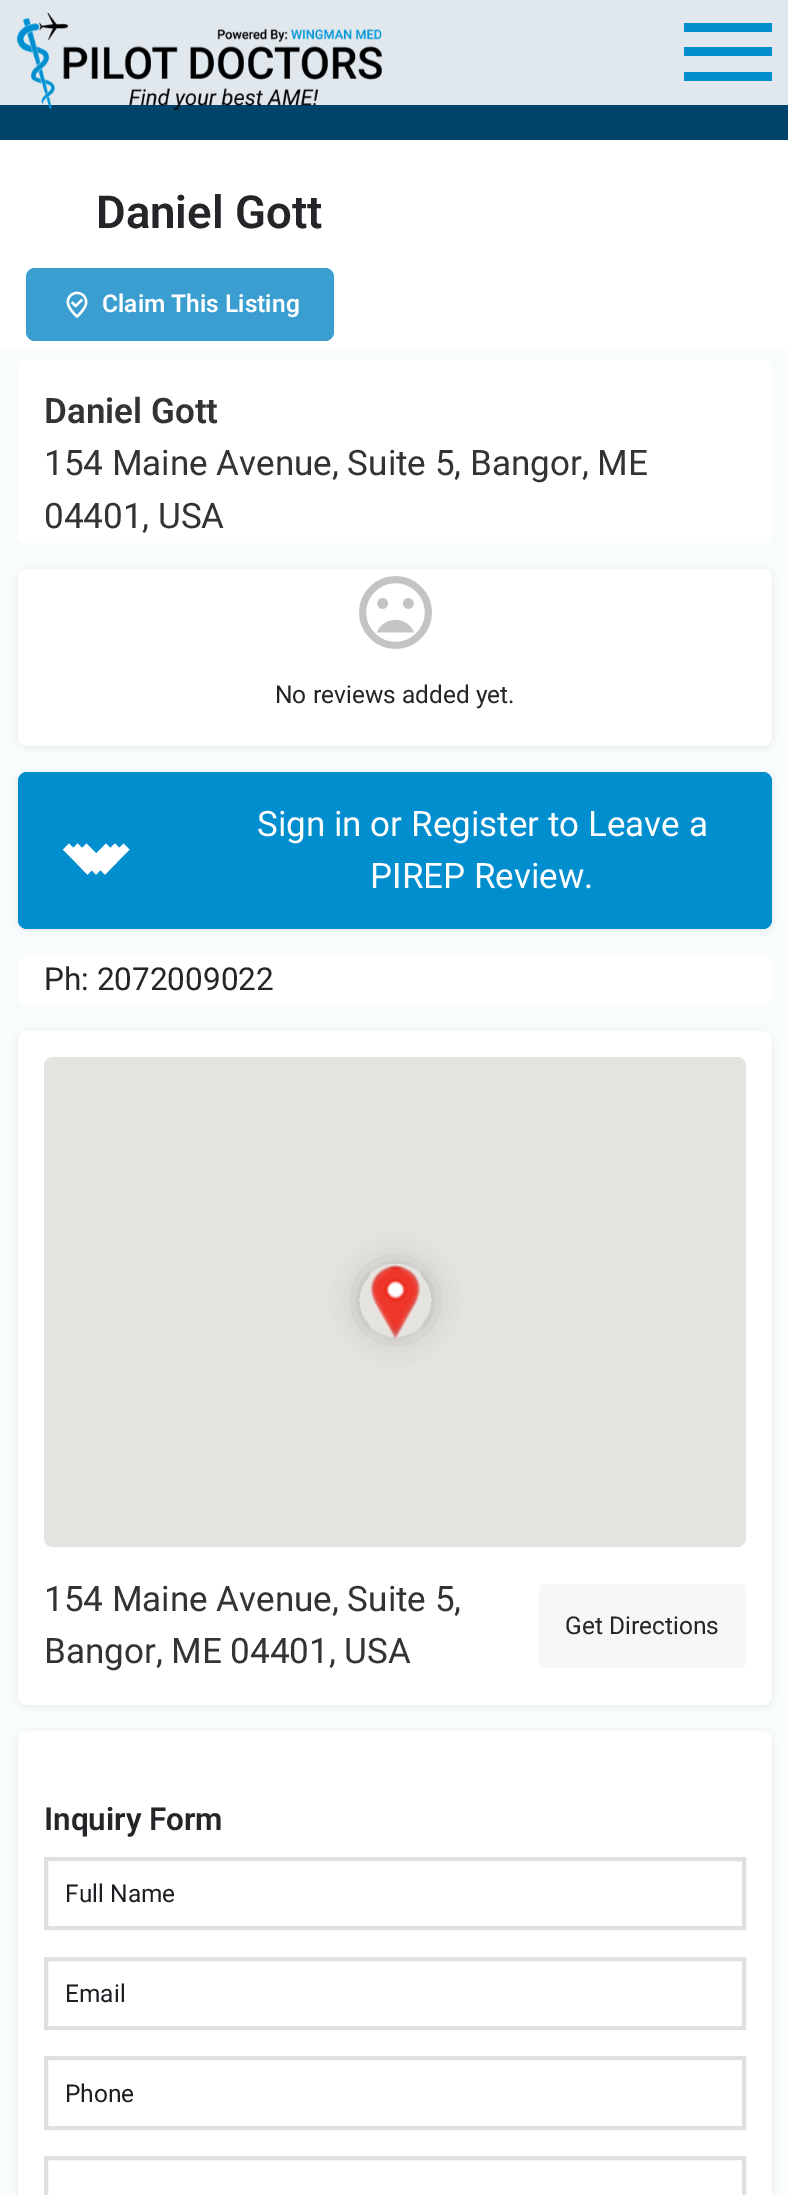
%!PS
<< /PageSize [788 2195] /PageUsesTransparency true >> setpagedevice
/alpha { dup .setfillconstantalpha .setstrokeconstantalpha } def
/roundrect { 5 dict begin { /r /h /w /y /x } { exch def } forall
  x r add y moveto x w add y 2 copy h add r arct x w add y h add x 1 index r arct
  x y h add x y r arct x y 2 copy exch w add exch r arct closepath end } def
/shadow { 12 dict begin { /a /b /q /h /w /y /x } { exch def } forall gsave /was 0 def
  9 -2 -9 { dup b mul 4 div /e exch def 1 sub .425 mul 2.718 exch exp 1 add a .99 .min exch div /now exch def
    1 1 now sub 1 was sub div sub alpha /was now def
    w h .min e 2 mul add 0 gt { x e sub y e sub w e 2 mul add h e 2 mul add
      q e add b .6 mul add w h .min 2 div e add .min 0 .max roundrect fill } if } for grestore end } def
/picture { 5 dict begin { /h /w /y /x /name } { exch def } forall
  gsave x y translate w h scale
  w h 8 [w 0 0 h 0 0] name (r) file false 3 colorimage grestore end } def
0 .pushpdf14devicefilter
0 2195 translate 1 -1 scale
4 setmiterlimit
0.976 0.988 0.992 setrgbcolor
0 0 788 2195 rectfill
0.878 0.91 0.929 setrgbcolor
0 0 788 105 rectfill
0 0.263 0.42 setrgbcolor
0 105 788 35 rectfill
(img1.rgb) 17 12 365 98 picture
0 0.557 0.808 setrgbcolor
684 23 88 9 rectfill
684 47 88 9 rectfill
684 72 88 9 rectfill
1 setgray
0 140 788 210 rectfill
/Roboto-SemiBold [45.5 0 0 -45.5 0 0] selectfont
0.141 0.141 0.161 setrgbcolor
96 228 moveto (Daniel Gott) show
0.227 0.624 0.816 setrgbcolor
26 268 308 73 9 roundrect fill
(img2.rgb) 66 291 22 28 picture
/Roboto-SemiBold [24.5 0 0 -24.5 0 0] selectfont
1 setgray
102 312 moveto (Claim This Listing) show
18 359 754 184 9 roundrect fill
/Roboto-SemiBold [35 0 0 -35 0 0] selectfont
0.2 setgray
44 423 moveto (Daniel Gott) show
/Roboto-Regular [35 0 0 -35 0 0] selectfont
44 475 moveto (154 Maine Avenue, Suite 5, Bangor, ME) show
44 528 moveto (04401, USA) show
0 setgray
18 571 754 176 9 3.5 0.07 shadow
1 setgray
18 569 754 177 9 roundrect fill
(img3.rgb) 359 576 73 73 picture
/Roboto-Regular [24.5 0 0 -24.5 0 0] selectfont
0.141 0.141 0.161 setrgbcolor
275 703 moveto (No reviews added yet.) show
0 setgray
18 774 754 157 9 3.5 0.07 shadow
0 0.557 0.808 setrgbcolor
18 772 754 157 9 roundrect fill
1 setgray
newpath 123.5 843.5 moveto 129.5 849.5 lineto 105 874.5 lineto 99 868 lineto closepath fill
newpath 86.5 843.5 moveto 111 868 lineto 105 874.5 lineto 80.5 849.5 lineto closepath fill
newpath 115 843.5 moveto 121 849.5 lineto 96 874.5 lineto 90 868 lineto closepath fill
newpath 77.5 843.5 moveto 102.5 868 lineto 96 874.5 lineto 71.5 849.5 lineto closepath fill
newpath 106 843.5 moveto 112 849.5 lineto 87.5 874.5 lineto 81.5 868 lineto closepath fill
newpath 69 843.5 moveto 93.5 868 lineto 87.5 874.5 lineto 63 849.5 lineto closepath fill
/Roboto-Regular [35 0 0 -35 0 0] selectfont
257 836 moveto (Sign in or Register to Leave a) show
370 888 moveto (PIREP Review.) show
18 956 754 49 9 roundrect fill
/Roboto-Regular [31.5 0 0 -31.5 0 0] selectfont
0.141 0.141 0.161 setrgbcolor
44 990 moveto (Ph: 2072009022) show
0 setgray
18 1033 754 673 9 3.5 0.07 shadow
1 setgray
18 1031 754 674 9 roundrect fill
0.898 0.89 0.875 setrgbcolor
44 1057 702 490 9 roundrect fill
gsave
newpath 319 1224 moveto 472 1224 lineto 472 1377 lineto 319 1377 lineto closepath 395.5 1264 moveto 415.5 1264 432 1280.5 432 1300.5 curveto 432 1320.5 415.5 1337 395.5 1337 curveto 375.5 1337 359 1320.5 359 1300.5 curveto 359 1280.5 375.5 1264 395.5 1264 curveto closepath eoclip newpath
0 setgray
359 1264 73 73 36.5 13 0.2 shadow
grestore
(img4.rgb) 370 1264 51 75 picture
/Roboto-Regular [35 0 0 -35 0 0] selectfont
0.2 setgray
44 1611 moveto (154 Maine Avenue, Suite 5,) show
44 1663 moveto (Bangor, ME 04401, USA) show
0.969 setgray
539 1584 207 84 5 roundrect fill
/Roboto-Regular [24.5 0 0 -24.5 0 0] selectfont
0.141 0.141 0.161 setrgbcolor
565 1634 moveto (Get Directions) show
0 setgray
18 1733 754 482 9 3.5 0.07 shadow
1 setgray
18 1731 754 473 9 roundrect fill
/Roboto-SemiBold [31.5 0 0 -31.5 0 0] selectfont
0.141 0.141 0.161 setrgbcolor
44 1830 moveto (Inquiry Form) show
0.878 setgray
4 setlinewidth
46 1859 698 69 rectstroke
/Roboto-Regular [24.5 0 0 -24.5 0 0] selectfont
0.114 0.114 0.137 setrgbcolor
65 1902 moveto (Full Name) show
0.878 setgray
46 1959 698 69 rectstroke
0.114 0.114 0.137 setrgbcolor
65 2002 moveto (Email) show
0.878 setgray
46 2058 698 70 rectstroke
0.114 0.114 0.137 setrgbcolor
65 2102 moveto (Phone) show
0.878 setgray
46 2158 698 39 rectstroke
.poppdf14devicefilter showpage
